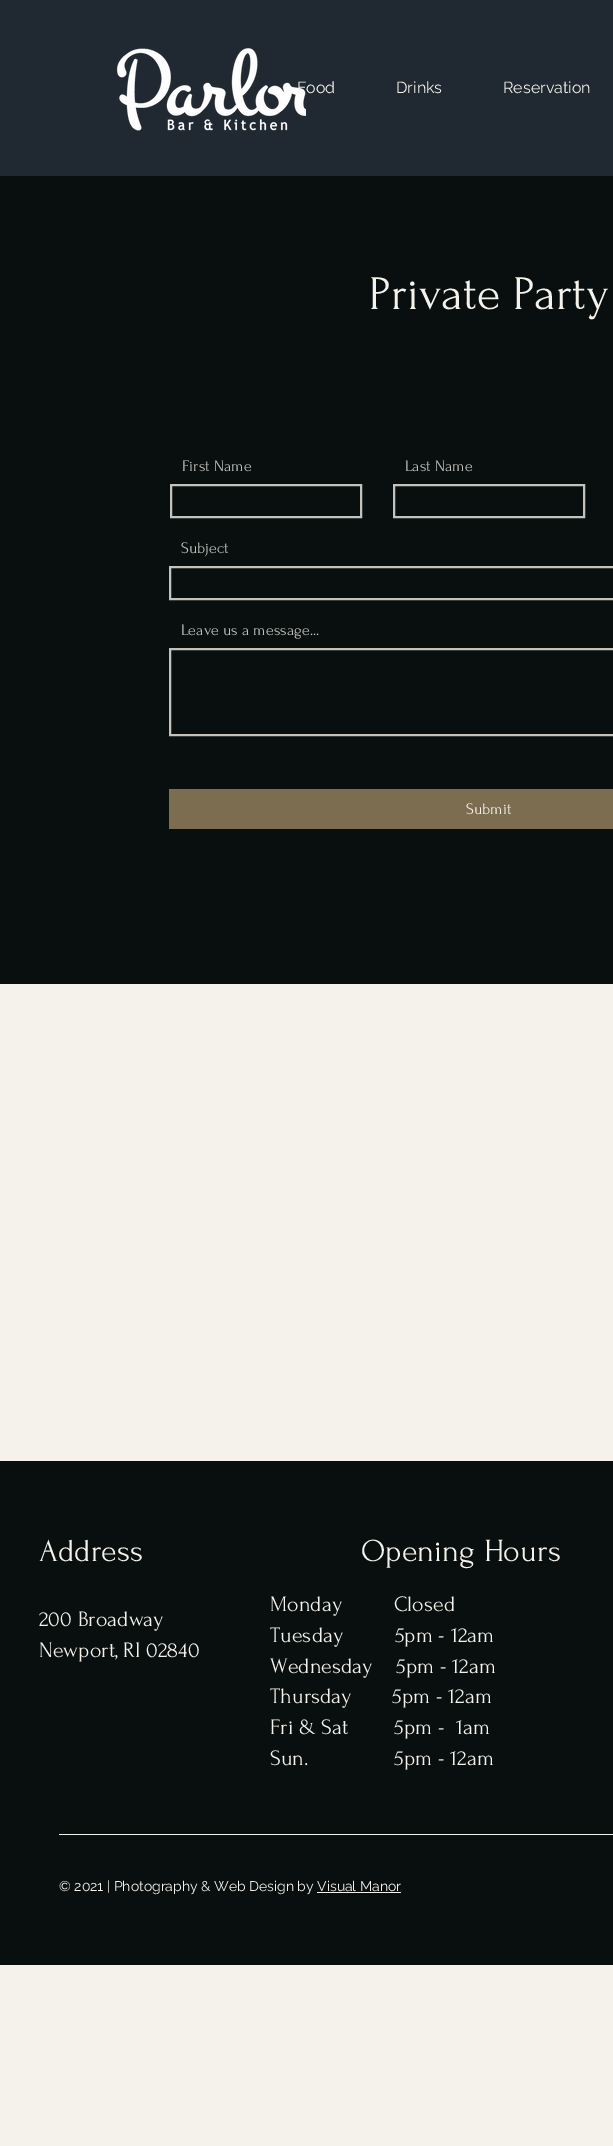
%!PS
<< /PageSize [613 2146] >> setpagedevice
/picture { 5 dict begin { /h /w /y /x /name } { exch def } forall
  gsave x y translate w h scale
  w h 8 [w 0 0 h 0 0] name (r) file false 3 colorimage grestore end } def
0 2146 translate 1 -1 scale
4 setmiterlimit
0.957 0.949 0.922 setrgbcolor
0 0 613 2146 rectfill
0.125 0.161 0.192 setrgbcolor
0 0 613 176 rectfill
(img1.rgb) 116 48 190 83 picture
/Raleway-Regular [16 0 0 -16 0 0] selectfont
0.957 0.949 0.922 setrgbcolor
297 93 moveto (Food) show
396 93 moveto (Drinks) show
503 93 moveto (Reservation) show
0.035 0.059 0.059 setrgbcolor
0 176 613 808 rectfill
/Forum-Regular [48 0 0 -48 0 0] selectfont
0.957 0.949 0.922 setrgbcolor
369 309 moveto (Private Party) show
/Forum-Regular [16 0 0 -16 0 0] selectfont
0.765 0.761 0.737 setrgbcolor
182 471 moveto (First Name) show
2 setlinewidth
171 485 190 32 rectstroke
405 471 moveto (Last Name) show
394 485 190 32 rectstroke
181 553 moveto (Subject) show
170 567 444 32 rectstroke
181 635 moveto (Leave us a message...) show
170 649 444 86 rectstroke
0.486 0.424 0.314 setrgbcolor
169 789 444 40 rectfill
0.957 0.949 0.922 setrgbcolor
466 814 moveto (Submit) show
0.035 0.059 0.059 setrgbcolor
0 1461 613 504 rectfill
/Forum-Regular [32 0 0 -32 0 0] selectfont
0.957 0.949 0.922 setrgbcolor
39 1561 moveto (Address) show
361 1561 moveto (Opening Hours) show
/Forum-Regular [22 0 0 -22 0 0] selectfont
39 1626 moveto (200 Broadway) show
39 1657 moveto (Newport, RI 02840) show
270 1611 moveto (Monday         Closed) show
270 1642 moveto (Tuesday         5pm - 12am) show
270 1673 moveto (Wednesday) show
396 1673 moveto (5pm - 12am) show
270 1703 moveto (Thursday) show
392 1703 moveto (5pm - 12am) show
270 1734 moveto (Fri & Sat        5pm -  1am) show
270 1765 moveto (Sun.               5pm - 12am) show
59 1834 554 1 rectfill
/Raleway-Regular [14 0 0 -14 0 0] selectfont
59 1891 moveto (© 2021 | Photography & Web Design by Visual Manor) show
317 1892 84 1 rectfill
showpage
